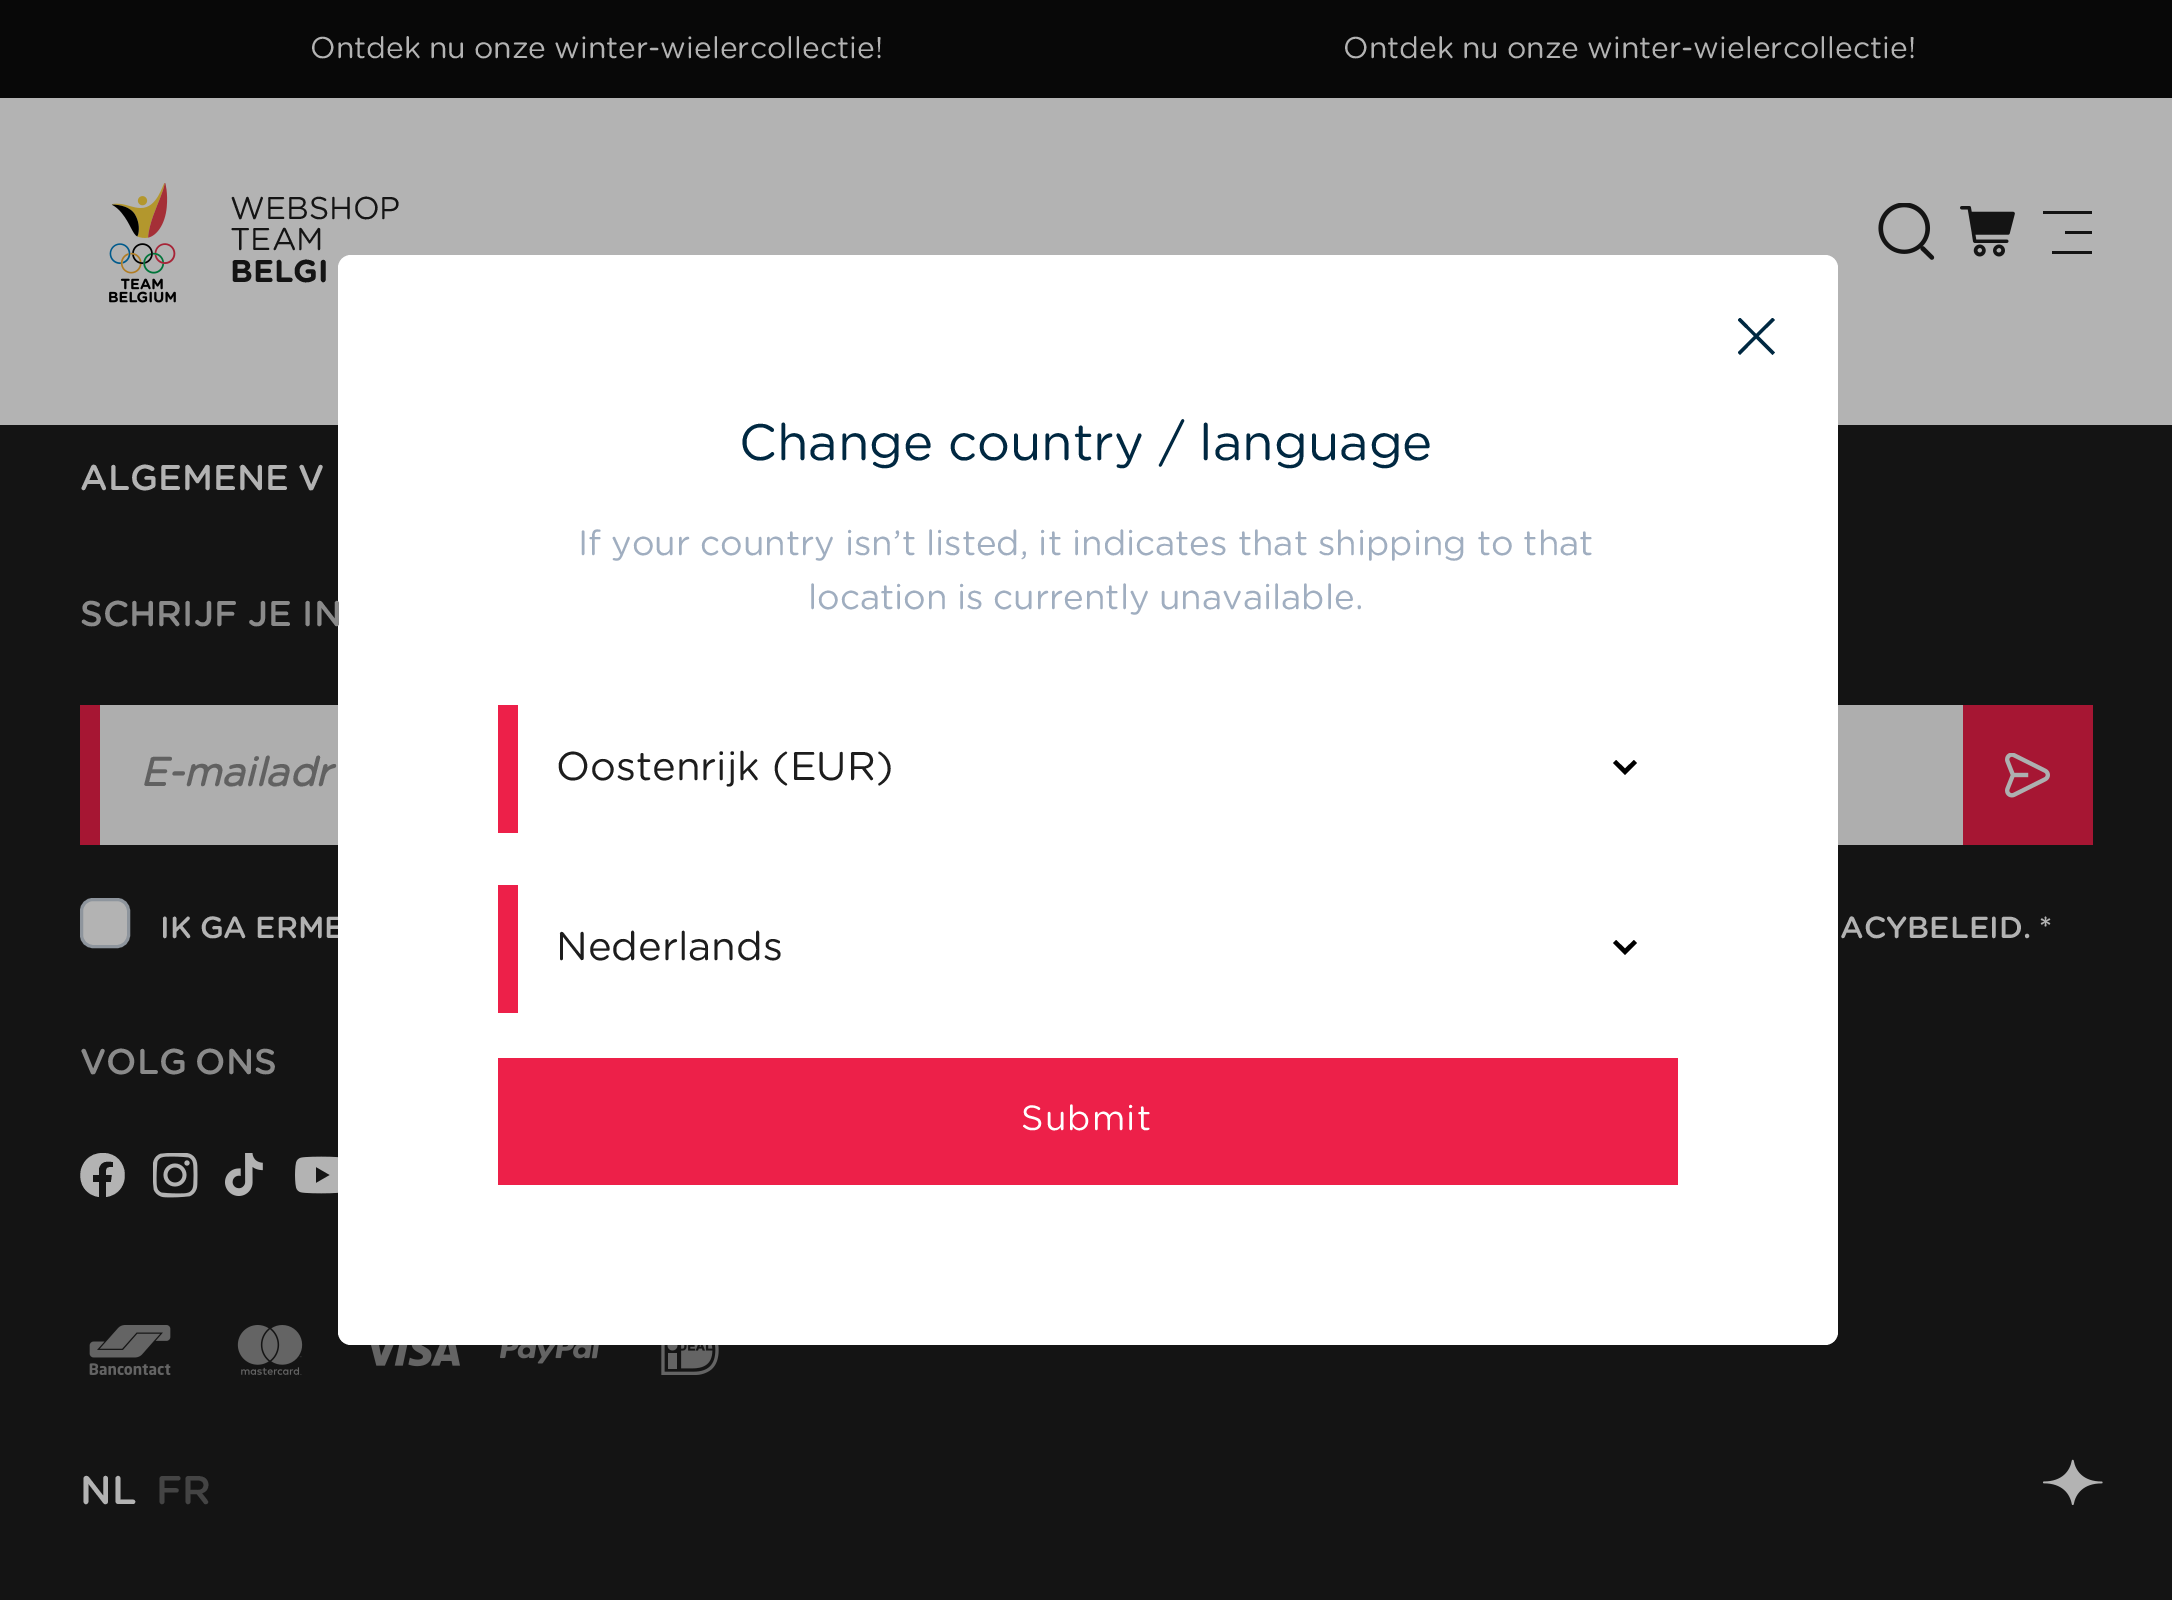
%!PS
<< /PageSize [2172 1600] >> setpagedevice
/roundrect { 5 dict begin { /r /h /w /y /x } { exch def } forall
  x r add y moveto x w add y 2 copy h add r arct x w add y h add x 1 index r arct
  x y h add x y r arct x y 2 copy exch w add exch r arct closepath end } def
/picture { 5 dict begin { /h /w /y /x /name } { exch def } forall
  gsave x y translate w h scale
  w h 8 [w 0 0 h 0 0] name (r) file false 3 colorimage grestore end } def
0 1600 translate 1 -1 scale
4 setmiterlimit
0.078 setgray
0 0 2172 1600 rectfill
0.702 setgray
0 98 2172 327 rectfill
0.031 setgray
0 0 2172 98 rectfill
/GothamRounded-Regular [30 0 0 -30 0 0] selectfont
0.702 setgray
310 58 moveto -1 0 32 (Ontdek nu onze winter-wielercollectie!) widthshow
1343 58 moveto -1 0 32 (Ontdek nu onze winter-wielercollectie!) widthshow
(img1.rgb) 109 183 67 120 picture
/GothamRounded-Regular [31.5 0 0 -31.5 0 0] selectfont
0.078 setgray
230 219 moveto (WEBSHOP) show
230 250 moveto (TEAM) show
/GothamRounded-Bold [31.5 0 0 -31.5 0 0] selectfont
230 282 moveto (BELGI) show
(img2.rgb) 1878 203 57 57 picture
(img3.rgb) 1960 206 55 51 picture
gsave
2043 208 50 50 rectclip
newpath 2065 231 moveto 2092 231 lineto 2092 234 lineto 2065 234 lineto closepath 2042 211 moveto 2042 214 lineto 2092 214 lineto 2092 211 lineto closepath 2052 254 moveto 2092 254 lineto 2092 251 lineto 2052 251 lineto closepath fill
grestore
0.682 setgray
100 705 1863 140 rectfill
/GothamRounded-Medium [30.5 0 0 -30.5 0 0] selectfont
0.702 setgray
160 938 moveto -1 0 32 (IK GA ERME) widthshow
1 setgray
338 255 1500 1090 13 roundrect fill
gsave
1738 318 37 37 rectclip
0 0.157 0.255 setrgbcolor
newpath 1775 320 moveto 1772.5 317.5 lineto 1756 334 lineto 1740 317.5 lineto 1737.5 320 lineto 1754 336 lineto 1737.5 352.5 lineto 1740 355 lineto 1756 338.5 lineto 1772.5 355 lineto 1775 352.5 lineto 1758.5 336 lineto closepath fill
grestore
/GothamRounded-Regular [51 0 0 -51 0 0] selectfont
0 0.157 0.255 setrgbcolor
739 460 moveto -0.5 0 32 (Change country / language) widthshow
/GothamRounded-Regular [35 0 0 -35 0 0] selectfont
0.627 0.682 0.753 setrgbcolor
578 555 moveto -0.4 0 32 (If your country isn’t listed, it indicates that shipping to that) widthshow
808 609 moveto -1 0 32 (location is currently unavailable.) widthshow
0 setgray
newpath 1634 760 moveto 1625 768.5 lineto 1616 760 lineto 1613 763 lineto 1625 775 lineto 1637 763 lineto closepath fill
0.929 0.125 0.286 setrgbcolor
498 705 20 128 rectfill
/GothamRounded-Regular [40 0 0 -40 0 0] selectfont
0.114 setgray
556 780 moveto (Oostenrijk \(EUR\)) show
0 setgray
newpath 1634 940 moveto 1625 948.5 lineto 1616 940 lineto 1613 943 lineto 1625 955 lineto 1637 943 lineto closepath fill
0.929 0.125 0.286 setrgbcolor
498 885 20 128 rectfill
0.114 setgray
556 960 moveto (Nederlands) show
0.929 0.125 0.286 setrgbcolor
498 1058 1180 127 rectfill
/GothamRounded-Regular [35 0 0 -35 0 0] selectfont
1 setgray
1021 1130 moveto 1.25 0 (Submit) ashow
/GothamRounded-Medium [35.75 0 0 -35.75 0 0] selectfont
0.702 setgray
80 490 moveto -2 0 32 (ALGEMENE V) widthshow
0.541 setgray
80 626 moveto (SCHRIJF JE IN) show
0.651 0.086 0.2 setrgbcolor
80 705 20 140 rectfill
/GothamRounded-BoldItalic [40 0 0 -40 0 0] selectfont
0.38 setgray
140 786 moveto (E-mailadr) show
0.651 0.086 0.2 setrgbcolor
1963 705 130 140 rectfill
(img4.rgb) 2005 753 45 45 picture
0.702 setgray
81.5 899.5 47 47 11.5 roundrect gsave fill grestore
0.557 0.584 0.616 setrgbcolor
3 setlinewidth
stroke
/GothamRounded-Medium [30.5 0 0 -30.5 0 0] selectfont
0.702 setgray
1840 938 moveto -1 0 32 (ACYBELEID. *) widthshow
/GothamRounded-Medium [35.75 0 0 -35.75 0 0] selectfont
0.541 setgray
80 1074 moveto -2 0 32 (VOLG ONS) widthshow
0.702 setgray
newpath 103 1153 moveto 75 1153 72 1193 99 1197 curveto 99 1182 lineto 93 1182 lineto 93 1175 lineto 99 1175 lineto 99 1168 lineto 101 1161 107 1161 113 1162 curveto 113 1167 lineto 106 1167 106 1168 106 1175 curveto 112 1175 lineto 111 1182 lineto 106 1182 lineto 106 1197 lineto 133 1193 130 1153 103 1153 curveto closepath fill
(img5.rgb) 153 1153 45 45 picture
(img6.rgb) 225 1153 38 43 picture
(img7.rgb) 295 1156 43 38 picture
(img8.rgb) 89 1325 82 50 picture
(img9.rgb) 237 1325 66 50 picture
(img10.rgb) 371 1345 89 22 picture
(img11.rgb) 500 1345 99 19 picture
(img12.rgb) 661 1345 58 30 picture
/GothamRounded-Medium [40 0 0 -40 0 0] selectfont
80 1504 moveto (NL) show
0.267 setgray
156 1504 moveto (FR) show
(img13.rgb) 2043 1459 60 46 picture
showpage
